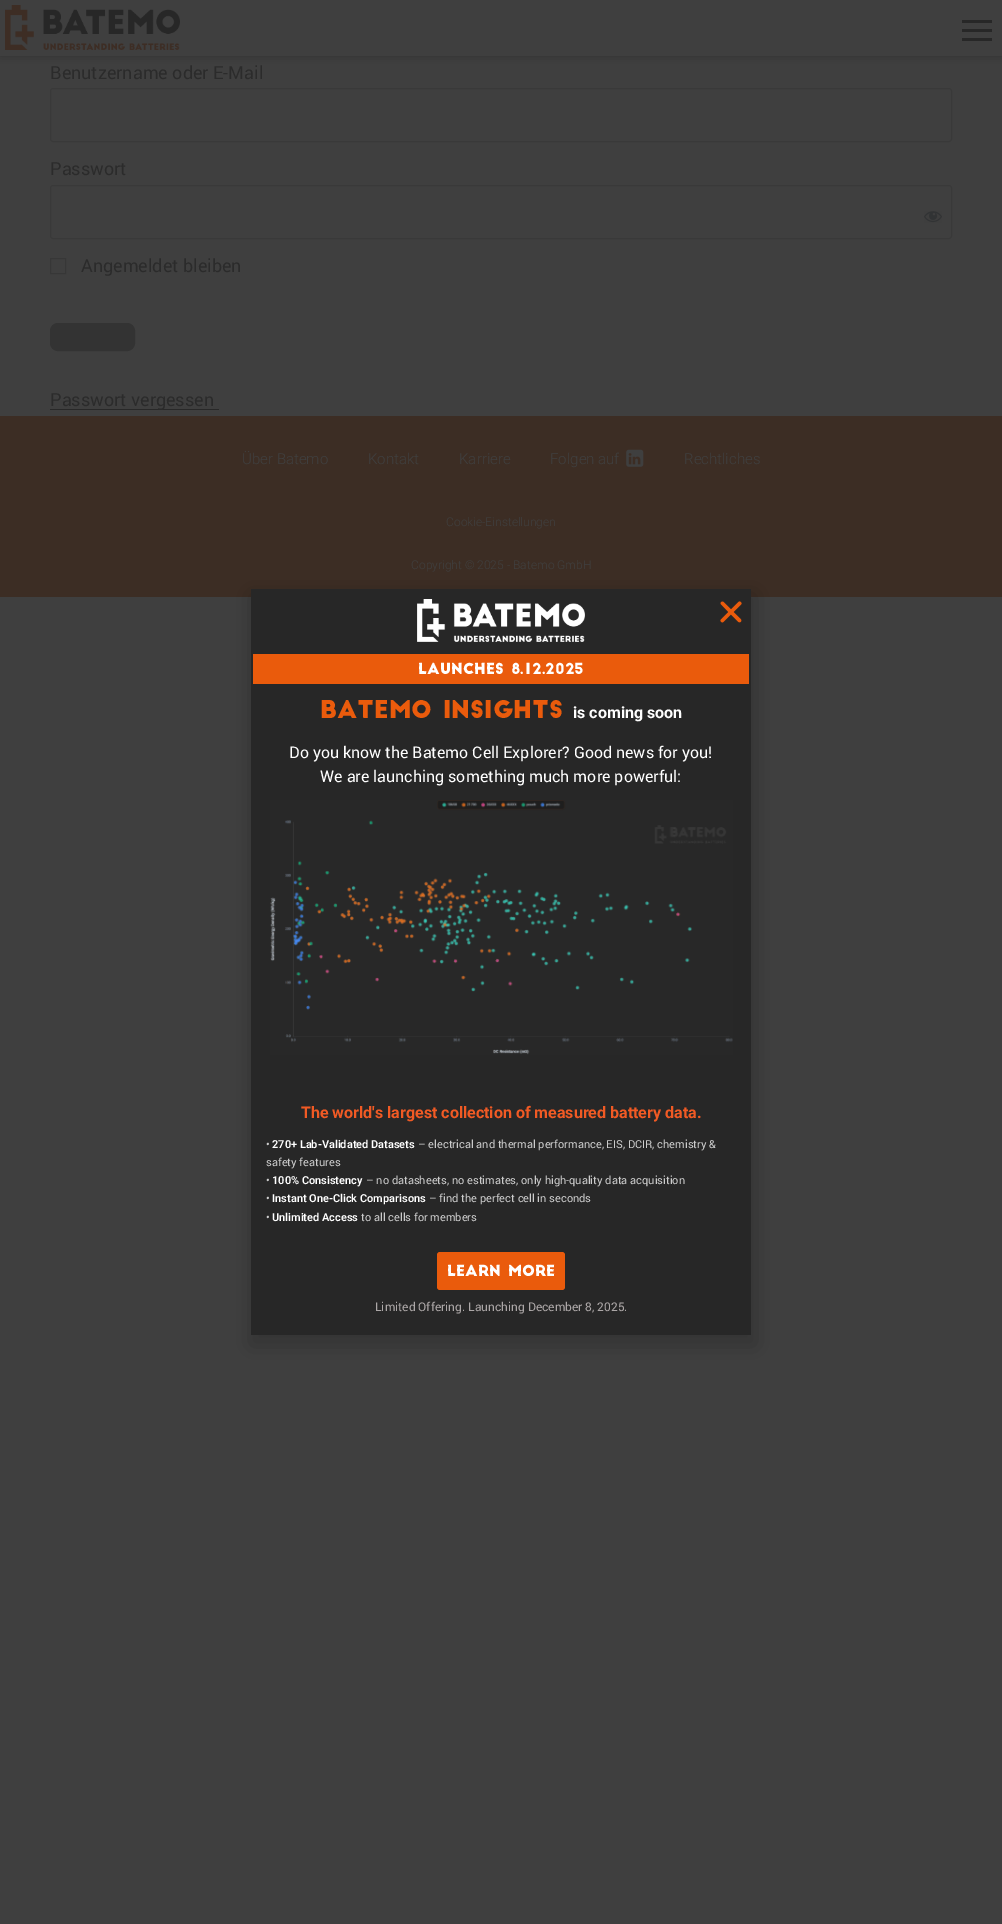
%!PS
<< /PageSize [1002 1924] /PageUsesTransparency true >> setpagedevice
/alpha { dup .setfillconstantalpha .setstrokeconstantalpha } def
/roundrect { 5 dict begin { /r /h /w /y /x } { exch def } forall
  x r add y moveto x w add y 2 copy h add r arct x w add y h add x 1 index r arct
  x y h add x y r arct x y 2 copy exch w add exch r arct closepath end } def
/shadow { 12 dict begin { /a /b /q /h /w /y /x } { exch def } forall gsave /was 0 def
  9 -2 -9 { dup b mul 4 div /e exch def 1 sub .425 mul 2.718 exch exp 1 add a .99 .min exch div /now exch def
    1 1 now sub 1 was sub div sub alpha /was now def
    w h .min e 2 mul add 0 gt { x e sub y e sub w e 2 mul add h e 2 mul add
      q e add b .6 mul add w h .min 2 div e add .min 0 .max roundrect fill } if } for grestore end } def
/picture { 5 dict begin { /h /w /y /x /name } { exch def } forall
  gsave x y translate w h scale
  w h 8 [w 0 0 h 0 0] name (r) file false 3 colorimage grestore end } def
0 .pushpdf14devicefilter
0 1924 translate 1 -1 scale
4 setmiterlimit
0.247 setgray
0 0 1002 1924 rectfill
0.137 setgray
0 0 1002 56 0 5 0.5 shadow
0.247 setgray
0 0 1002 56 rectfill
(img1.rgb) 5 5 175 45 picture
0.153 setgray
962 20 30 3 rectfill
962 29 30 3 rectfill
962 38 30 3 rectfill
/Roboto-Regular [18 0 0 -18 0 0] selectfont
0.169 setgray
50 79 moveto (Benutzername oder E-Mail) show
0.2 alpha
0.137 setgray
50.5 88.5 901 53 2.5 roundrect stroke
1 alpha
0.169 setgray
50 175 moveto (Passwort) show
0.2 alpha
0.137 setgray
50.5 185.5 901 53 2.5 roundrect stroke
1 alpha
(img2.rgb) 924 211 18 12 picture
0.216 setgray
50.5 258.5 15 15 rectstroke
0.169 setgray
81 272 moveto (Angemeldet bleiben) show
0.2 setgray
50.5 323.5 84 27 7.5 roundrect gsave fill grestore
stroke
0.157 setgray
50 409 169 1 rectfill
0.169 setgray
50 406 moveto (Passwort vergessen) show
0.235 0.176 0.141 setrgbcolor
0 416 1002 181 rectfill
/Roboto-Light [15 0 0 -15 0 0] selectfont
0.247 setgray
242 464 moveto (Über Batemo) show
368 464 moveto (Kontakt) show
459 464 moveto (Karriere) show
550 464 moveto (Folgen auf) show
(img3.rgb) 626 449 18 18 picture
684 464 moveto (Rechtliches) show
/Roboto-Light [12 0 0 -12 0 0] selectfont
446 526 moveto (Cookie-Einstellungen) show
411 569 moveto (Copyright © 2025 - Batemo GmbH) show
0 setgray
250 594 506 752 0 11.5 0.2 shadow
0.153 setgray
251 589 500 746 rectfill
(img4.rgb) 720 601 22 22 picture
(img5.rgb) 417 599 168 43 picture
0.918 0.357 0.047 setrgbcolor
253 654 496 30 rectfill
/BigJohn-Regular [15 0 0 -15 0 0] selectfont
1 setgray
418 674 moveto (Launches 8.12.2025) show
/BigJohn-Regular [24 0 0 -24 0 0] selectfont
0.918 0.357 0.047 setrgbcolor
320 718 moveto (Batemo Insights) show
/Roboto-Bold [16 0 0 -16 0 0] selectfont
1 setgray
573 718 moveto (is coming soon) show
/Roboto-Regular [16 0 0 -16 0 0] selectfont
289 758 moveto (Do you know the Batemo Cell Explorer? Good news for you!) show
320 782 moveto (We are launching something much more powerful:) show
(img6.rgb) 270 800 463 255 picture
/Roboto-Bold [16 0 0 -16 0 0] selectfont
0.945 0.353 0.141 setrgbcolor
301 1118 moveto (The world's largest collection of measured battery data.) show
/Roboto-Regular [11 0 0 -11 0 0] selectfont
0.8 setgray
266 1148 moveto (•) show
/Roboto-SemiBold [11 0 0 -11 0 0] selectfont
1 setgray
272 1148 moveto (270+ Lab-Validated Datasets) show
/Roboto-Regular [11 0 0 -11 0 0] selectfont
0.8 setgray
418 1148 moveto (– electrical and thermal performance, EIS, DCIR, chemistry &) show
266 1166 moveto (safety features) show
266 1184 moveto (•) show
/Roboto-SemiBold [11 0 0 -11 0 0] selectfont
1 setgray
272 1184 moveto (100% Consistency) show
/Roboto-Regular [11 0 0 -11 0 0] selectfont
0.8 setgray
366 1184 moveto (– no datasheets, no estimates, only high-quality data acquisition) show
266 1202 moveto (•) show
/Roboto-SemiBold [11 0 0 -11 0 0] selectfont
1 setgray
272 1202 moveto (Instant One-Click Comparisons) show
/Roboto-Regular [11 0 0 -11 0 0] selectfont
0.8 setgray
429 1202 moveto (– find the perfect cell in seconds) show
266 1221 moveto (•) show
/Roboto-SemiBold [11 0 0 -11 0 0] selectfont
1 setgray
272 1221 moveto (Unlimited Access) show
/Roboto-Regular [11 0 0 -11 0 0] selectfont
0.8 setgray
361 1221 moveto (to all cells for members) show
0.918 0.357 0.047 setrgbcolor
437 1252 128 38 3 roundrect fill
/BigJohn-Regular [15 0 0 -15 0 0] selectfont
1 setgray
447 1276 moveto (Learn More) show
/Roboto-Regular [12 0 0 -12 0 0] selectfont
0.675 0.655 0.655 setrgbcolor
375 1311 moveto (Limited Offering. Launching December 8, 2025.) show
.poppdf14devicefilter showpage
